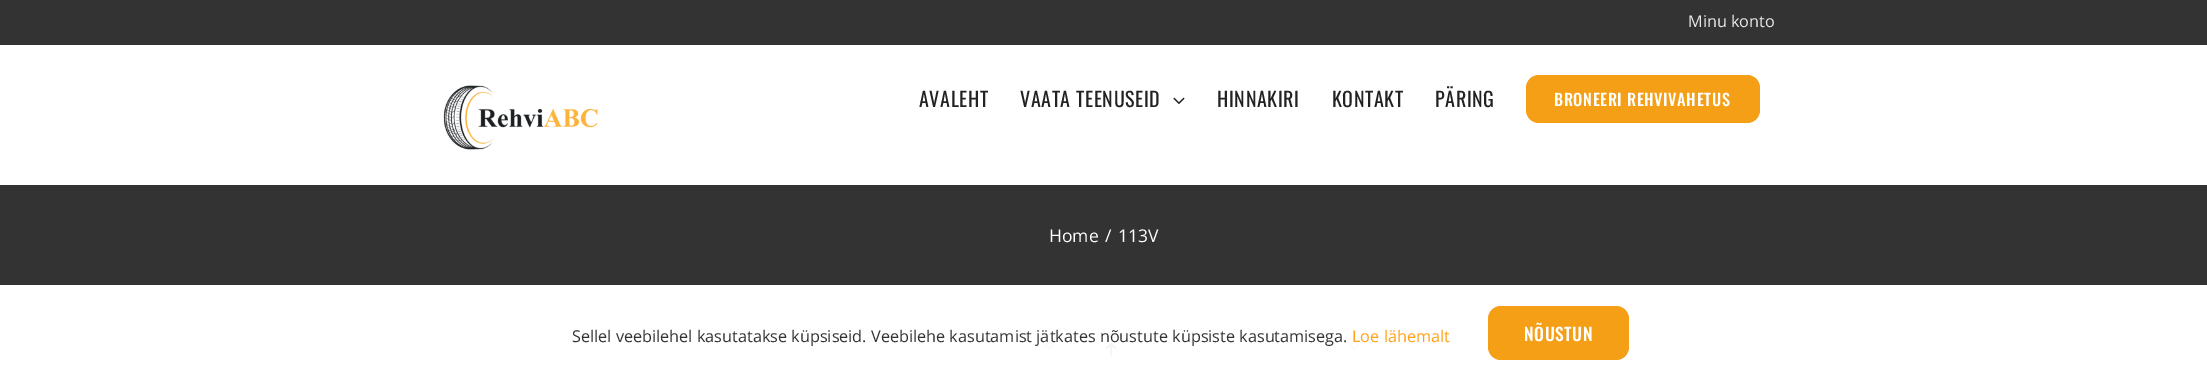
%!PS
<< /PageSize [2207 384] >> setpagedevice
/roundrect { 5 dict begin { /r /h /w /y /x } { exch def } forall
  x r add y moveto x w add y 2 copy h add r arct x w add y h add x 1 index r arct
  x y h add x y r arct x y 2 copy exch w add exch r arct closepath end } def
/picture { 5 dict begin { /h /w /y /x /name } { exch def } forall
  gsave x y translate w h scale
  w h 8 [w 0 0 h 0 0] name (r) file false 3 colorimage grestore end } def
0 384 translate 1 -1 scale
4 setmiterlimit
1 setgray
0 0 2207 384 rectfill
0.2 setgray
0 0 2207 45 rectfill
/OpenSans-Regular [16.25 0 0 -16.25 0 0] selectfont
0.918 setgray
1688 27 moveto (Minu konto) show
(img1.rgb) 443 85 155 65 picture
/Oswald-Regular [20 0 0 -20 0 0] selectfont
0.133 setgray
919 107 moveto 0.6 0 (AVALEHT) ashow
1020 107 moveto 0.6 0 (VAATA TEENUSEID) ashow
(img2.rgb) 1173 97 12 8 picture
1217 107 moveto 0.6 0 (HINNAKIRI) ashow
1332 107 moveto 0.6 0 (KONTAKT) ashow
1435 107 moveto 0.6 0 (PÄRING) ashow
0.961 0.624 0.086 setrgbcolor
1526 75 234 48 13 roundrect fill
/Oswald-Medium [16.25 0 0 -16.25 0 0] selectfont
1 setgray
1554 106 moveto 0.6 0 (BRONEERI REHVIVAHETUS) ashow
0.2 setgray
0 185 2207 100 rectfill
/OpenSans-Regular [17.5 0 0 -17.5 0 0] selectfont
1 setgray
1049 242 moveto (Home) show
1105 242 moveto (/) show
1118 242 moveto (113V) show
(img3.rgb) 1044 344 11 6 picture
(img4.rgb) 1105 342 12 14 picture
(img3.rgb) 1349 344 11 6 picture
/OpenSans-Regular [16.25 0 0 -16.25 0 0] selectfont
0.2 setgray
572 342 moveto (Sellel veebilehel kasutatakse küpsiseid. Veebilehe kasutamist jätkates nõustute küpsiste kasutamisega.) show
1 0.635 0.098 setrgbcolor
1352 342 moveto (Loe lähemalt) show
0.961 0.624 0.086 setrgbcolor
1488 306 141 54 13 roundrect fill
/Oswald-Medium [17.5 0 0 -17.5 0 0] selectfont
1 setgray
1524 341 moveto 0.6 0 (NÕUSTUN) ashow
showpage
